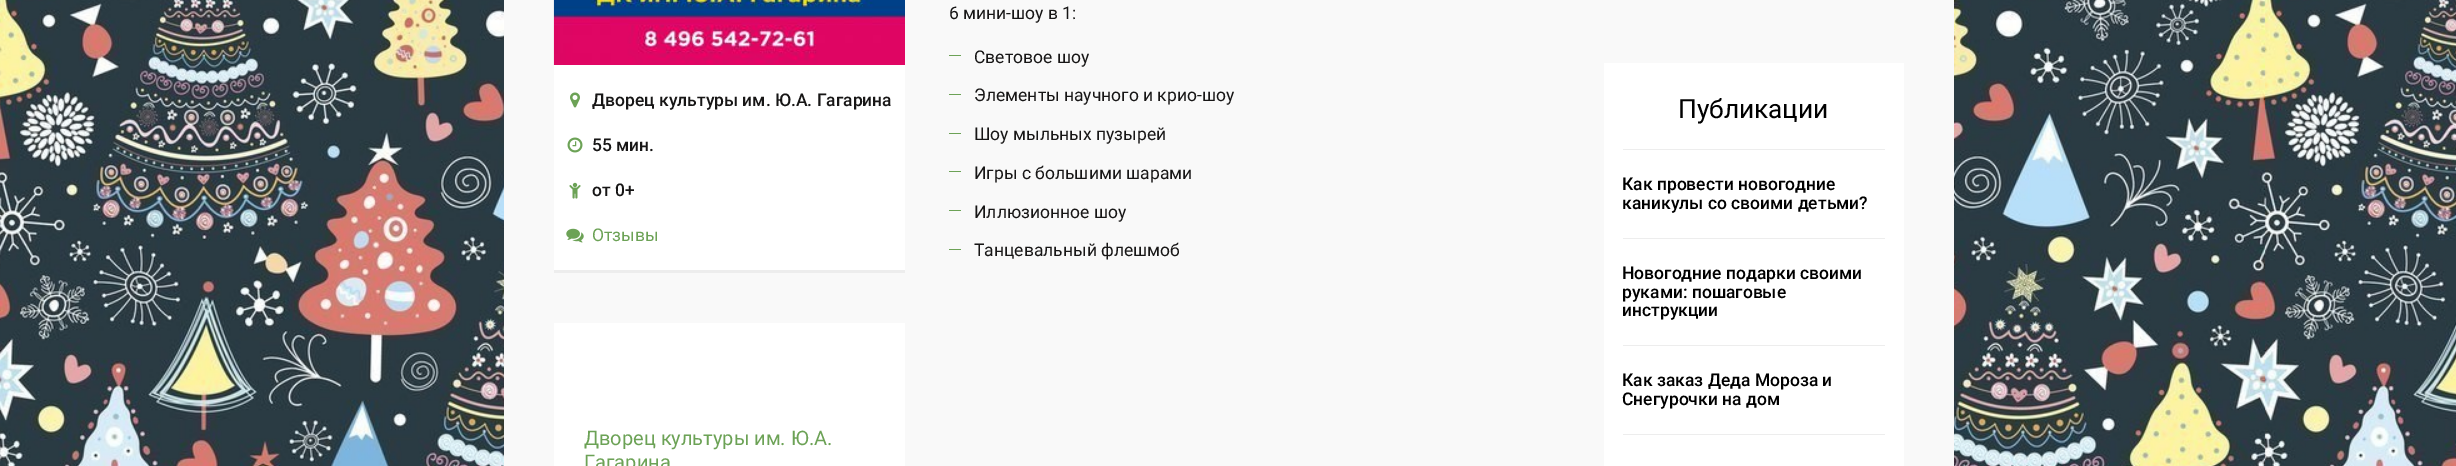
%!PS
<< /PageSize [2456 466] >> setpagedevice
/picture { 5 dict begin { /h /w /y /x /name } { exch def } forall
  gsave x y translate w h scale
  w h 8 [w 0 0 h 0 0] name (r) file false 3 colorimage grestore end } def
0 466 translate 1 -1 scale
4 setmiterlimit
1 setgray
0 0 2456 466 rectfill
(img1.rgb) 0 0 2456 466 picture
0.976 setgray
504 0 1450 466 rectfill
1 setgray
554 65 351 205 rectfill
0.929 setgray
554 270 351 3 rectfill
(img2.rgb) 553 0 352 65 picture
(img3.rgb) 570 92 10 16 picture
/Roboto-Medium [17.5 0 0 -17.5 0 0] selectfont
0.09 0.086 0.086 setrgbcolor
592 106 moveto (Дворец культуры им. Ю.А. Гагарина) show
(img4.rgb) 567 137 16 16 picture
592 151 moveto (55 мин.) show
(img5.rgb) 569 182 12 17 picture
592 196 moveto (от 0+) show
(img6.rgb) 566 228 18 15 picture
/Roboto-Regular [17.5 0 0 -17.5 0 0] selectfont
0.424 0.635 0.337 setrgbcolor
592 241 moveto (Отзывы) show
0.09 0.086 0.086 setrgbcolor
949 19 moveto (6 мини-шоу в 1:) show
0.424 0.635 0.337 setrgbcolor
949 55 12 1 rectfill
0.09 0.086 0.086 setrgbcolor
974 63 moveto (Световое шоу) show
0.424 0.635 0.337 setrgbcolor
949 94 12 1 rectfill
0.09 0.086 0.086 setrgbcolor
974 101 moveto (Элементы научного и крио-шоу) show
0.424 0.635 0.337 setrgbcolor
949 133 12 1 rectfill
0.09 0.086 0.086 setrgbcolor
974 140 moveto (Шоу мыльных пузырей) show
0.424 0.635 0.337 setrgbcolor
949 171 12 1 rectfill
0.09 0.086 0.086 setrgbcolor
974 179 moveto (Игры с большими шарами) show
0.424 0.635 0.337 setrgbcolor
949 210 12 1 rectfill
0.09 0.086 0.086 setrgbcolor
974 218 moveto (Иллюзионное шоу) show
0.424 0.635 0.337 setrgbcolor
949 249 12 1 rectfill
0.09 0.086 0.086 setrgbcolor
974 256 moveto (Танцевальный флешмоб) show
1 setgray
554 323 351 143 rectfill
/Roboto-Regular [20 0 0 -20 0 0] selectfont
0.424 0.635 0.337 setrgbcolor
584 445 moveto (Дворец культуры им. Ю.А.) show
584 469 moveto (Гагарина) show
1 setgray
1604 63 300 403 rectfill
/Roboto-Regular [26.25 0 0 -26.25 0 0] selectfont
0 setgray
1678 118 moveto (Публикации) show
0.929 setgray
1623 149 262 1 rectfill
/Roboto-Medium [17.5 0 0 -17.5 0 0] selectfont
0 setgray
1622 190 moveto (Как провести новогодние) show
1622 209 moveto (каникулы со своими детьми?) show
0.929 setgray
1623 238 262 1 rectfill
0 setgray
1622 279 moveto (Новогодние подарки своими) show
1622 298 moveto (руками: пошаговые) show
1622 316 moveto (инструкции) show
0.929 setgray
1623 345 262 1 rectfill
0 setgray
1622 386 moveto (Как заказ Деда Мороза и) show
1622 405 moveto (Снегурочки на дом) show
0.929 setgray
1623 434 262 1 rectfill
showpage
